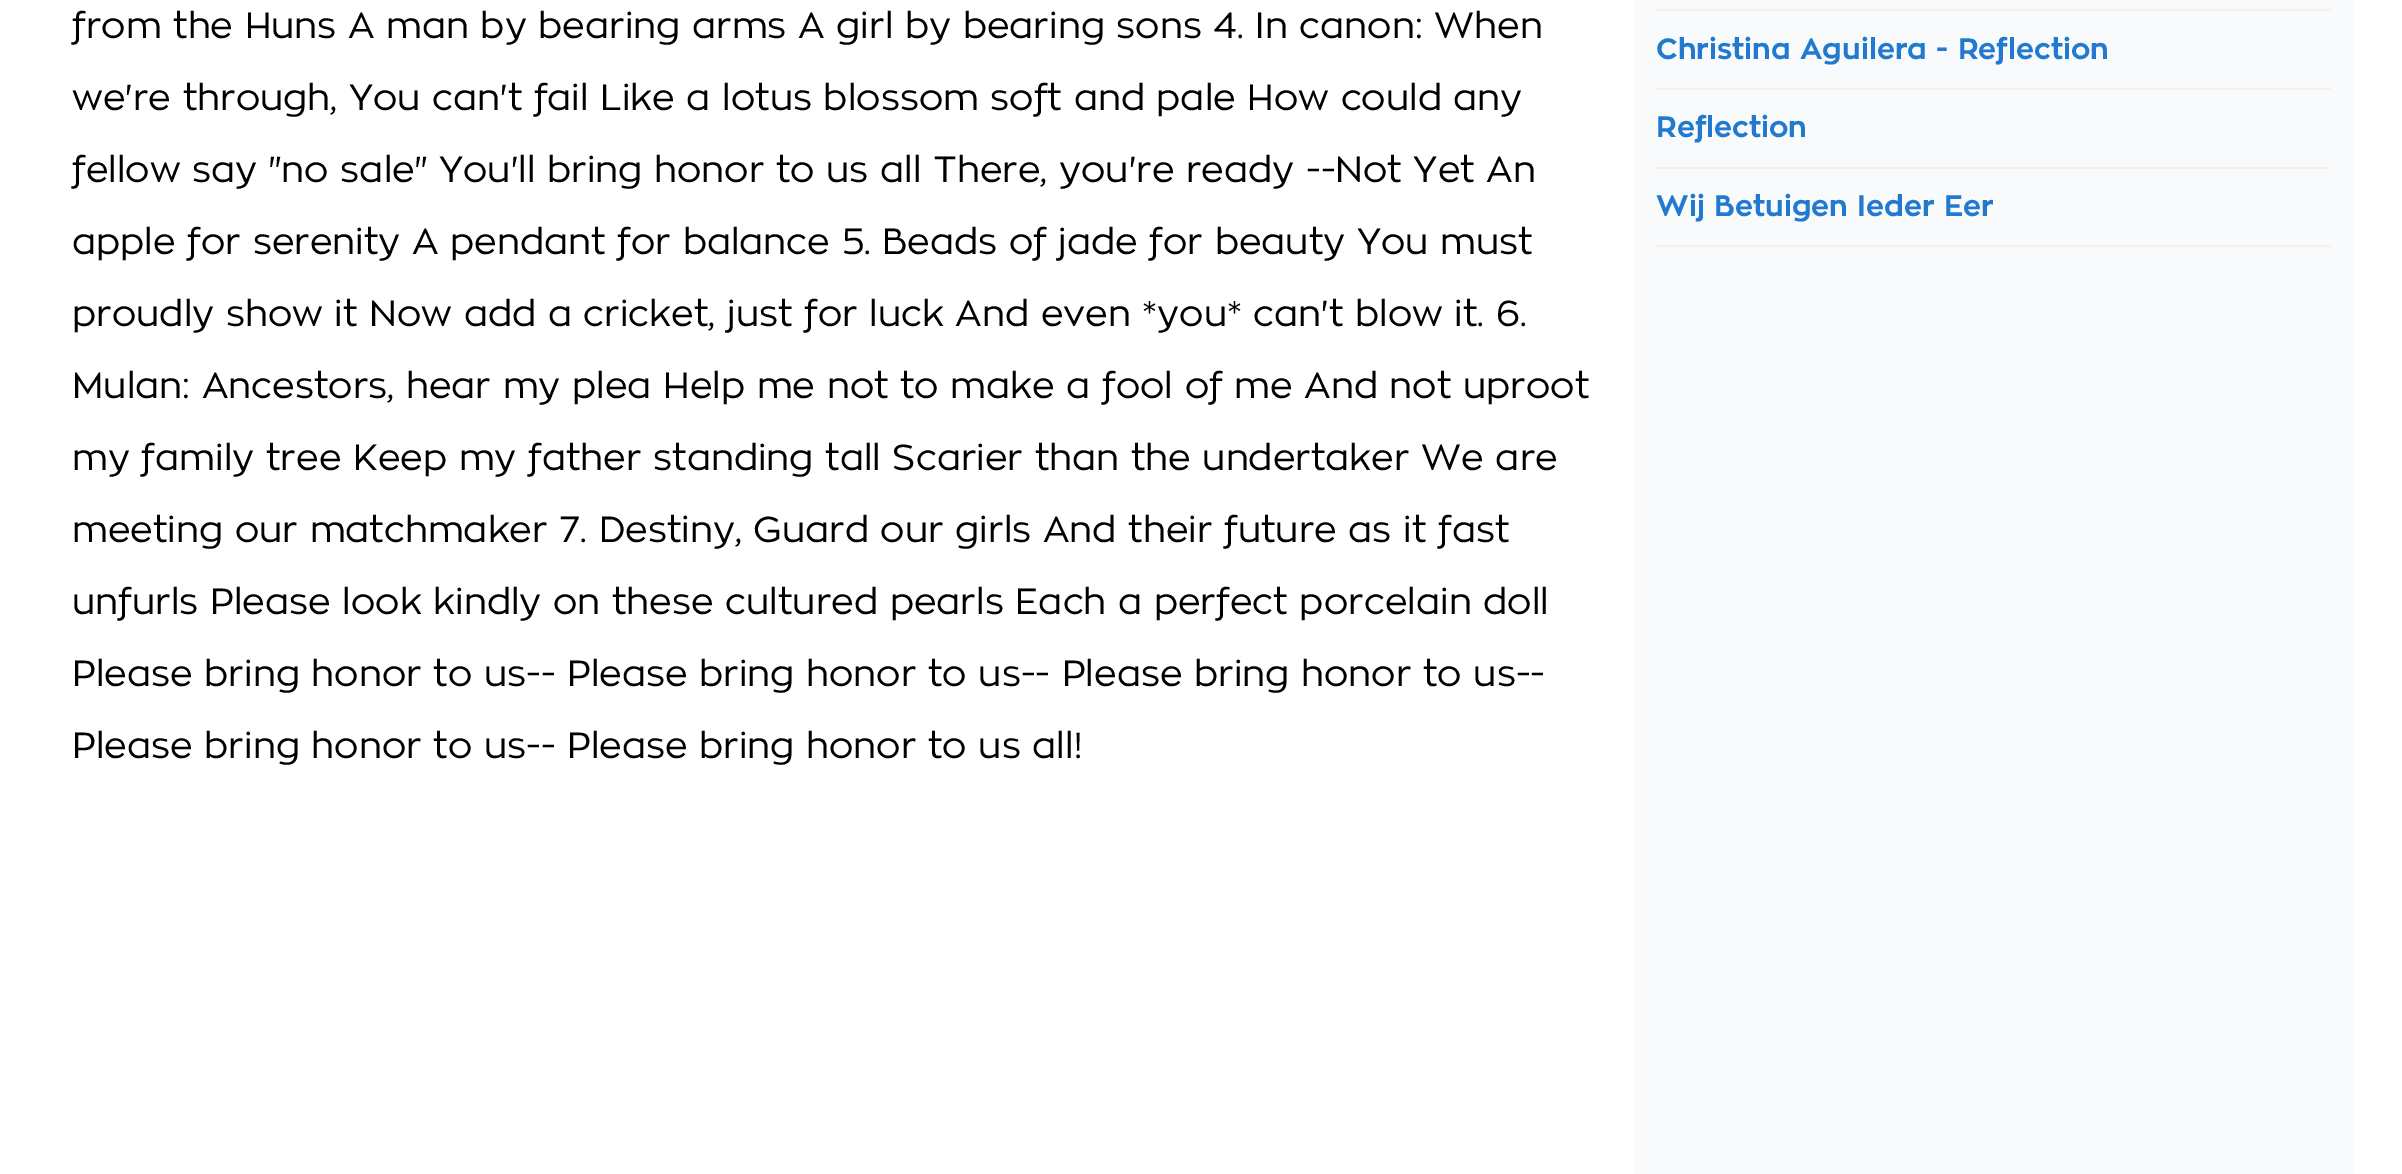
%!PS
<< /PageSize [2402 1174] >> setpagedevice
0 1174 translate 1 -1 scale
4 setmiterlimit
1 setgray
0 0 2402 1174 rectfill
/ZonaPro-Regular [36 0 0 -36 0 0] selectfont
0 setgray
72 38 moveto (from the Huns A man by bearing arms A girl by bearing sons 4. In canon: When) show
72 110 moveto (we're through, You can't fail Like a lotus blossom soft and pale How could any) show
72 182 moveto (fellow say "no sale" You'll bring honor to us all There, you're ready --Not Yet An) show
72 254 moveto (apple for serenity A pendant for balance 5. Beads of jade for beauty You must) show
72 326 moveto (proudly show it Now add a cricket, just for luck And even *you* can't blow it. 6.) show
72 398 moveto (Mulan: Ancestors, hear my plea Help me not to make a fool of me And not uproot) show
72 470 moveto (my family tree Keep my father standing tall Scarier than the undertaker We are) show
72 542 moveto (meeting our matchmaker 7. Destiny, Guard our girls And their future as it fast) show
72 614 moveto (unfurls Please look kindly on these cultured pearls Each a perfect porcelain doll) show
72 686 moveto (Please bring honor to us-- Please bring honor to us-- Please bring honor to us--) show
72 758 moveto (Please bring honor to us-- Please bring honor to us all!) show
0.973 0.98 0.984 setrgbcolor
1634 0 720 1174 rectfill
0.945 setgray
1656 9 675 2 rectfill
1656 88 675 2 rectfill
/ZonaPro-Bold [29.25 0 0 -29.25 0 0] selectfont
0.129 0.478 0.812 setrgbcolor
1656 59 moveto (Christina Aguilera - Reflection) show
0.945 setgray
1656 167 675 2 rectfill
0.129 0.478 0.812 setrgbcolor
1656 137 moveto (Reflection) show
0.945 setgray
1656 245 675 2 rectfill
0.129 0.478 0.812 setrgbcolor
1656 216 moveto (Wij Betuigen Ieder Eer) show
showpage
